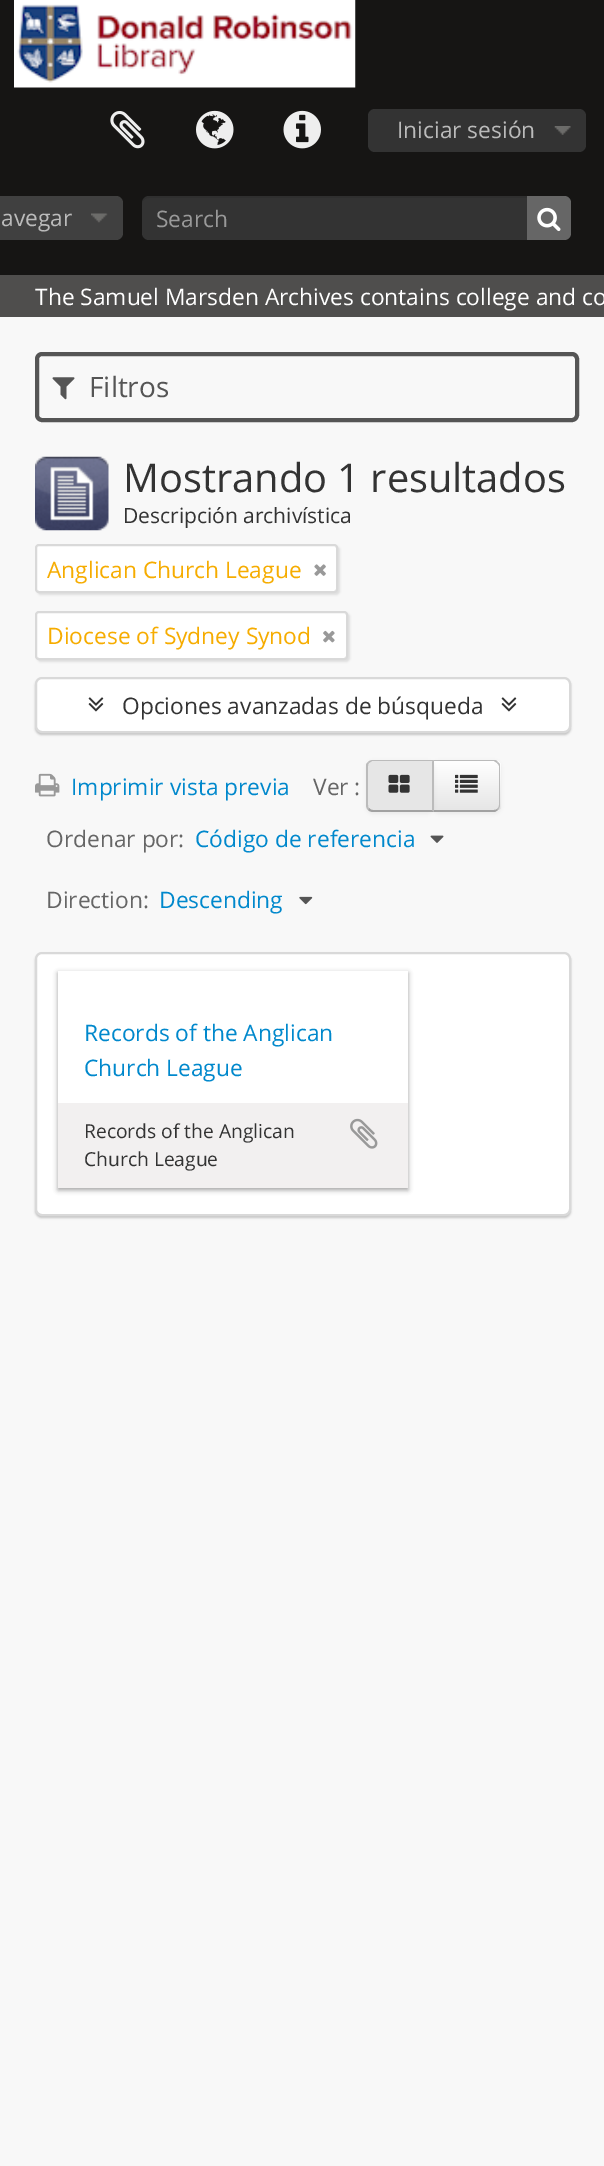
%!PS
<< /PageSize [604 2166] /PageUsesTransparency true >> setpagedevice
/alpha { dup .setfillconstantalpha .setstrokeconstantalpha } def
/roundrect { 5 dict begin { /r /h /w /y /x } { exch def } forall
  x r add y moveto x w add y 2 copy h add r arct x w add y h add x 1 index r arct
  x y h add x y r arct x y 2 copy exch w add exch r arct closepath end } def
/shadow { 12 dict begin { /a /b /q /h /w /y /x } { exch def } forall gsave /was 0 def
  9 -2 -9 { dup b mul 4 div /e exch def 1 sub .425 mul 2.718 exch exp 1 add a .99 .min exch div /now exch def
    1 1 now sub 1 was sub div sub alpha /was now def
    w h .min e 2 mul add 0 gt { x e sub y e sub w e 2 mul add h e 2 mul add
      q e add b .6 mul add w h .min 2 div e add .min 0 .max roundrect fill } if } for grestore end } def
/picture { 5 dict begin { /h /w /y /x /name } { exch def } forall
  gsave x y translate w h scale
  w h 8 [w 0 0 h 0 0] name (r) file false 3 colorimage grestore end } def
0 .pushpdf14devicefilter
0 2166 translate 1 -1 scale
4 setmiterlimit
0.973 setgray
0 0 604 2166 rectfill
0.086 0.082 0.078 setrgbcolor
0 0 604 275 rectfill
(img1.rgb) 14 0 342 88 picture
(img2.rgb) 110 111 35 38 picture
(img3.rgb) 196 110 38 39 picture
(img4.rgb) 283 110 38 39 picture
0.2 setgray
368 109 218 43 7 roundrect fill
(img5.rgb) 554 126 17 9 picture
/OpenSans-Regular [22.75 0 0 -22.75 0 0] selectfont
0.733 setgray
397 138 moveto (Iniciar sesión) show
0.251 setgray
-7 196 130 44 7 roundrect fill
(img6.rgb) 91 213 17 10 picture
0.733 setgray
1 226 moveto (avegar) show
0.2 setgray
142 196 429 44 7 roundrect fill
0.07 alpha
0 setgray
newpath 149 198 moveto 564 198 lineto 567 198 570 201 570 205 curveto 570 234 lineto 569 238 lineto 570 236 571 235 571 233 curveto 571 203 lineto 571 199 568 196 564 196 curveto 149 196 lineto 145 196 142 199 142 203 curveto 142 205 lineto 142 201 145 198 149 198 curveto closepath fill
1 alpha
0.6 setgray
156 227 moveto (Search) show
0.4 setgray
newpath 527 196 moveto 564 196 lineto 568 196 571 199 571 203 curveto 571 233 lineto 571 237 568 240 564 240 curveto 527 240 lineto closepath fill
(img7.rgb) 537 207 24 25 picture
0.31 0.306 0.302 setrgbcolor
0 275 604 42 rectfill
1 setgray
35 305 moveto (The Samuel Marsden Archives contains college and co) show
0.333 setgray
4 setlinewidth
37 354 540 66 5 roundrect stroke
(img8.rgb) 52 377 23 23 picture
/OpenSans-Regular [28 0 0 -28 0 0] selectfont
89 397 moveto (Filtros) show
(img9.rgb) 35 456 74 75 picture
/OpenSans-Regular [39.75 0 0 -39.75 0 0] selectfont
0.2 setgray
123 492 moveto (Mostrando 1 resultados) show
/OpenSans-Regular [21 0 0 -21 0 0] selectfont
123 523 moveto (Descripción archivística) show
0 setgray
37 546 303 49 4 1 0.1 shadow
1 setgray
36 545 301 47 3 roundrect gsave fill grestore
0.851 setgray
2 setlinewidth
stroke
/OpenSans-Regular [22.75 0 0 -22.75 0 0] selectfont
0.965 0.675 0 setrgbcolor
47 578 moveto (Anglican Church League) show
(img10.rgb) 314 564 12 12 picture
0 setgray
37 613 313 49 4 1 0.1 shadow
1 setgray
36 612 311 47 3 roundrect gsave fill grestore
0.851 setgray
stroke
0.965 0.675 0 setrgbcolor
47 644 moveto (Diocese of Sydney Synod) show
(img11.rgb) 323 630 12 13 picture
0 setgray
35 679 536 56 7 1 0.2 shadow
1 setgray
36 678 534 54 6 roundrect gsave fill grestore
0.851 setgray
stroke
(img12.rgb) 88 697 16 15 picture
0.2 setgray
122 714 moveto (Opciones avanzadas de búsqueda) show
(img12.rgb) 501 697 16 15 picture
(img13.rgb) 35 773 25 24 picture
0 0.533 0.8 setrgbcolor
71 795 moveto (Imprimir vista previa) show
0.4 setgray
313 795 moveto (Ver :) show
0 setgray
432 761 69 53 7 2 0.05 shadow
0.961 setgray
newpath 432 760 moveto 494 760 lineto 498 760 501 763 501 767 curveto 501 805 lineto 501 809 498 812 494 812 curveto 432 812 lineto closepath fill
gsave
newpath 432 760 moveto 494 760 lineto 498 760 501 763 501 767 curveto 501 805 lineto 501 809 498 812 494 812 curveto 432 812 lineto closepath clip newpath
gsave newpath 434 761 moveto 501 761 lineto 501 810 lineto 434 810 lineto closepath clip newpath
<< /ShadingType 2 /ColorSpace /DeviceRGB /Coords [466 761 466 810] /Extend [true true] /Function << /FunctionType 2 /Domain [0 1] /C0 [1 1 1] /C1 [0.902 0.902 0.902] /N 1 >> >> shfill grestore
grestore
0.733 setgray
newpath 434 761 moveto 494 761 lineto 497 763 lineto 498 762 lineto 497 761 496 760 494 760 curveto 433 760 lineto closepath fill
newpath 498 762 moveto 499 763 500 764 500 766 curveto 500 805 lineto 500 807 499 809 498 810 curveto 497 809 lineto 498 808 499 807 499 805 curveto 499 766 lineto 499 765 498 764 497 763 curveto closepath fill
0.635 setgray
newpath 432 812 moveto 495 812 lineto 498 810 lineto 497 809 lineto 496 810 495 810 494 810 curveto 434 810 lineto closepath fill
0 setgray
366 761 68 53 7 2 0.05 shadow
0.902 setgray
newpath 373 760 moveto 434 760 lineto 434 812 lineto 373 812 lineto 369 812 366 809 366 805 curveto 366 767 lineto 366 763 369 760 373 760 curveto closepath fill
0.733 setgray
newpath 373 760 moveto 371 760 369 761 368 762 curveto 369 763 lineto 372 761 lineto 432 761 lineto 432 762 lineto 434 760 lineto closepath fill
newpath 434 812 moveto 434 760 lineto 432 762 lineto 432 810 lineto closepath fill
0.635 setgray
newpath 434 812 moveto 432 810 lineto 373 810 lineto 371 810 370 809 369 808 curveto 368 810 lineto 369 811 371 812 373 812 curveto closepath fill
0.733 setgray
newpath 368 762 moveto 367 763 366 764 366 766 curveto 366 805 lineto 366 807 367 809 368 810 curveto 369 808 lineto 368 808 368 806 368 805 curveto 368 766 lineto 368 765 368 764 369 763 curveto closepath fill
(img14.rgb) 388 774 22 19 picture
(img15.rgb) 455 774 23 19 picture
0.4 setgray
46 847 moveto (Ordenar por:) show
0 0.533 0.8 setrgbcolor
195 847 moveto (Código de referencia) show
(img16.rgb) 430 835 14 8 picture
0.4 setgray
46 908 moveto (Direction:) show
0 0.533 0.8 setrgbcolor
159 908 moveto (Descending) show
(img17.rgb) 299 896 14 9 picture
0 setgray
35 954 536 264 7 1 0.2 shadow
1 setgray
36 953 534 262 6 roundrect gsave fill grestore
0.851 setgray
stroke
0.098 setgray
58 973 350 217 0 2.5 0.4 shadow
1 setgray
58 971 350 132 rectfill
0 0.533 0.8 setrgbcolor
84 1041 moveto (Records of the Anglican) show
84 1076 moveto (Church League) show
0.949 0.941 0.941 setrgbcolor
58 1103 350 85 rectfill
/OpenSans-Regular [19.25 0 0 -19.25 0 0] selectfont
0.2 setgray
84 1138 moveto (Records of the Anglican) show
(img18.rgb) 350 1118 28 31 picture
84 1166 moveto (Church League) show
.poppdf14devicefilter showpage
